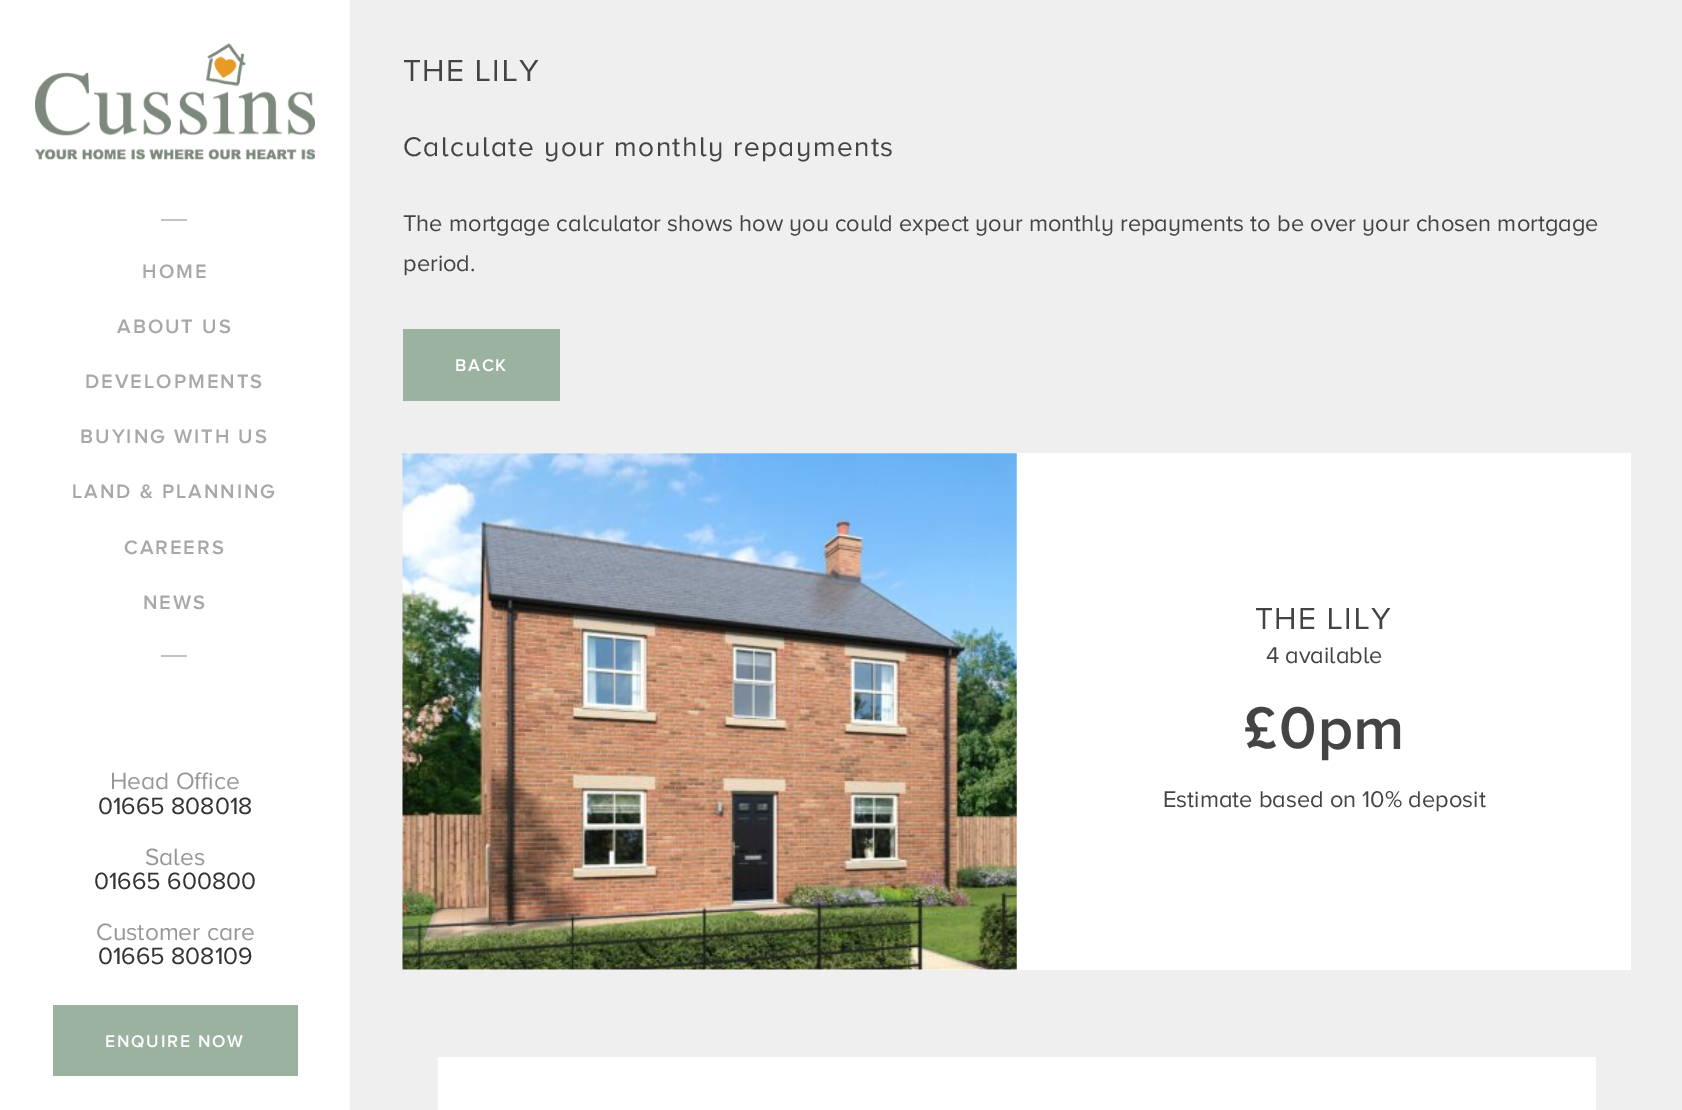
%!PS
<< /PageSize [1682 1110] >> setpagedevice
/picture { 5 dict begin { /h /w /y /x /name } { exch def } forall
  gsave x y translate w h scale
  w h 8 [w 0 0 h 0 0] name (r) file false 3 colorimage grestore end } def
0 1110 translate 1 -1 scale
4 setmiterlimit
0.937 setgray
0 0 1682 1110 rectfill
1 setgray
0 0 350 1110 rectfill
(img1.rgb) 35 43 280 117 picture
0.769 0.765 0.765 setrgbcolor
161 219 26 2 rectfill
/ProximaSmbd-SemiBold [20.1 0 0 -20.1 0 0] selectfont
0.663 0.659 0.659 setrgbcolor
142 278 moveto 2 0 (HOME) ashow
117 333 moveto 2 0 (ABOUT US) ashow
85 388 moveto 2 0 (DEVELOPMENTS) ashow
80 443 moveto 2 0 (BUYING WITH US) ashow
72 498 moveto 2 0 (LAND & PLANNING) ashow
124 554 moveto 2 0 (CAREERS) ashow
143 609 moveto 2 0 (NEWS) ashow
0.769 0.765 0.765 setrgbcolor
161 655 26 2 rectfill
/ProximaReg-Regular [24.5 0 0 -24.5 0 0] selectfont
0.596 0.592 0.592 setrgbcolor
110 789 moveto (Head Office) show
0.2 setgray
98 814 moveto (01665 808018) show
0.596 0.592 0.592 setrgbcolor
145 865 moveto (Sales) show
0.2 setgray
94 889 moveto (01665 600800) show
0.596 0.592 0.592 setrgbcolor
96 940 moveto (Customer care) show
0.2 setgray
98 964 moveto (01665 808109) show
0.608 0.698 0.627 setrgbcolor
53 1005 245 71 rectfill
/ProximaSmbd-SemiBold [17.5 0 0 -17.5 0 0] selectfont
1 setgray
105 1047 moveto 1.75 0 (ENQUIRE NOW) ashow
/ProximaReg-Regular [31.5 0 0 -31.5 0 0] selectfont
0.267 setgray
403 81 moveto 1.5 0 (THE LILY) ashow
/ProximaReg-Regular [28 0 0 -28 0 0] selectfont
403 156 moveto 1.4 0 (Calculate your monthly repayments) ashow
/ProximaReg-Regular [23.62 0 0 -23.62 0 0] selectfont
403 231 moveto (The mortgage calculator shows how you could expect your monthly repayments to be over your chosen mortgage) show
403 271 moveto (period.) show
0.608 0.698 0.627 setrgbcolor
403 329 157 72 rectfill
/ProximaSmbd-SemiBold [17.5 0 0 -17.5 0 0] selectfont
1 setgray
455 371 moveto 1.75 0 (BACK) ashow
403 453 1228 517 rectfill
(img2.rgb) 402 453 615 517 picture
/ProximaReg-Regular [31.5 0 0 -31.5 0 0] selectfont
0.267 setgray
1255 629 moveto 1.5 0 (THE LILY) ashow
/ProximaReg-Regular [23.62 0 0 -23.62 0 0] selectfont
1266 663 moveto (4 available) show
/ProximaSmbd-SemiBold [61 0 0 -61 0 0] selectfont
1244 748 moveto (£) show
1279 748 moveto (0) show
(img3.rgb) 1321 718 80 43 picture
/ProximaReg-Regular [23.62 0 0 -23.62 0 0] selectfont
1163 807 moveto (Estimate based on 10% deposit) show
1 setgray
438 1057 1158 53 rectfill
showpage
